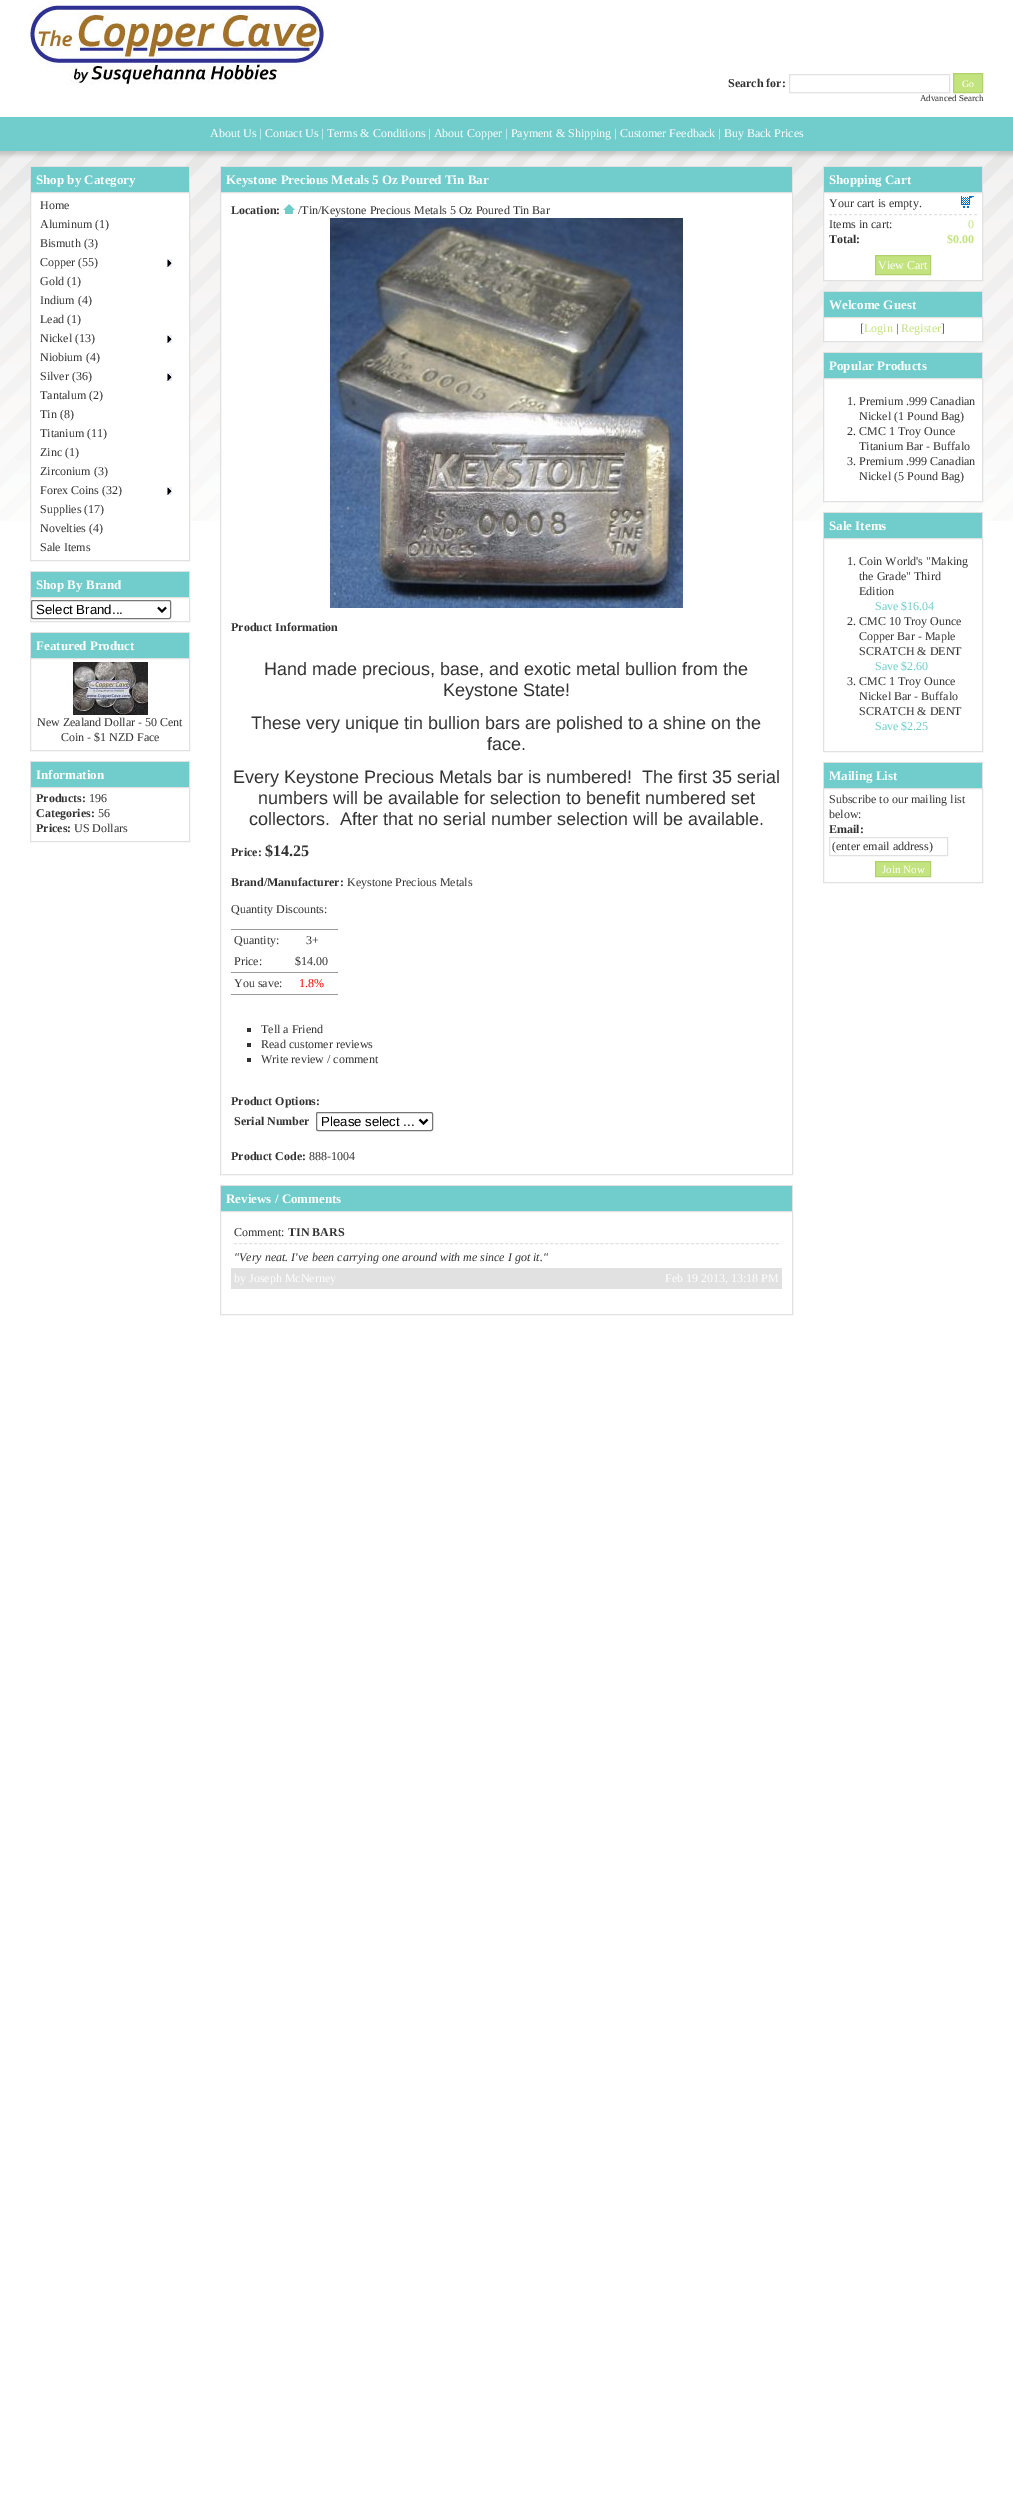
%!PS
<< /PageSize [1013 2503] >> setpagedevice
/roundrect { 5 dict begin { /r /h /w /y /x } { exch def } forall
  x r add y moveto x w add y 2 copy h add r arct x w add y h add x 1 index r arct
  x y h add x y r arct x y 2 copy exch w add exch r arct closepath end } def
/picture { 5 dict begin { /h /w /y /x /name } { exch def } forall
  gsave x y translate w h scale
  w h 8 [w 0 0 h 0 0] name (r) file false 3 colorimage grestore end } def
0 2503 translate 1 -1 scale
4 setmiterlimit
1 setgray
0 0 1013 2503 rectfill
(img1.rgb) 0 117 1013 404 picture
(img2.rgb) 30 5 294 79 picture
/LiberationSerif-Bold [12 0 0 -12 0 0] selectfont
0.2 setgray
728 87 moveto (Search for:) show
0.882 setgray
789.5 74.5 160 18 rectstroke
0.765 0.89 0.494 setrgbcolor
newpath 953.5 73.5 moveto 982.5 73.5 lineto 982.5 92.5 lineto 953.5 92.5 lineto closepath gsave fill grestore
0.694 0.82 0.424 setrgbcolor
stroke
/LiberationSerif-Regular [10 0 0 -10 0 0] selectfont
1 setgray
962 87 moveto (Go) show
/LiberationSerif-Regular [9 0 0 -9 0 0] selectfont
0.2 setgray
920 101 moveto (Advanced Search) show
/LiberationSerif-Regular [12 0 0 -12 0 0] selectfont
1 setgray
210 137 moveto (About Us | Contact Us | Terms & Conditions | About Copper | Payment & Shipping | Customer Feedback | Buy Back Prices) show
0.439 0.804 0.8 setrgbcolor
31 167 158 25 rectfill
0.882 setgray
30 166 160 1 rectfill
189 166 1 26 rectfill
30 166 1 26 rectfill
/LiberationSerif-Bold [13 0 0 -13 0 0] selectfont
1 setgray
36 184 moveto (Shop by Category) show
31 193 158 328 rectfill
0.882 setgray
30.5 192.5 159 368 rectstroke
/LiberationSerif-Regular [12 0 0 -12 0 0] selectfont
0.2 setgray
40 209 moveto (Home) show
40 228 moveto (Aluminum \(1\)) show
40 247 moveto (Bismuth \(3\)) show
(img3.rgb) 167 259 5 8 picture
40 266 moveto (Copper \(55\)) show
40 285 moveto (Gold \(1\)) show
40 304 moveto (Indium \(4\)) show
40 323 moveto (Lead \(1\)) show
(img3.rgb) 167 335 5 8 picture
40 342 moveto (Nickel \(13\)) show
40 361 moveto (Niobium \(4\)) show
(img3.rgb) 167 373 5 8 picture
40 380 moveto (Silver \(36\)) show
40 399 moveto (Tantalum \(2\)) show
40 418 moveto (Tin \(8\)) show
40 437 moveto (Titanium \(11\)) show
40 456 moveto (Zinc \(1\)) show
40 475 moveto (Zirconium \(3\)) show
(img3.rgb) 167 487 5 8 picture
40 494 moveto (Forex Coins \(32\)) show
40 513 moveto (Supplies \(17\)) show
40 532 moveto (Novelties \(4\)) show
40 551 moveto (Sale Items) show
0.439 0.804 0.8 setrgbcolor
31 572 158 25 rectfill
0.882 setgray
30 571 160 1 rectfill
189 571 1 26 rectfill
30 571 1 26 rectfill
/LiberationSerif-Bold [13 0 0 -13 0 0] selectfont
1 setgray
36 589 moveto (Shop By Brand) show
0.882 setgray
30.5 597.5 159 24 rectstroke
0.463 setgray
31.5 600.5 139 18 1.5 roundrect stroke
0 setgray
2 setlinewidth
newpath 158 607.5 moveto 162 611.5 lineto 166 607.5 lineto stroke
/LiberationSans-Regular [13.25 0 0 -13.25 0 0] selectfont
36 614 moveto (Select Brand...) show
0.439 0.804 0.8 setrgbcolor
31 633 158 25 rectfill
0.882 setgray
30 632 160 1 rectfill
189 632 1 26 rectfill
30 632 1 26 rectfill
/LiberationSerif-Bold [13 0 0 -13 0 0] selectfont
1 setgray
36 650 moveto (Featured Product) show
0.882 setgray
1 setlinewidth
30.5 658.5 159 92 rectstroke
(img4.rgb) 73 662 75 53 picture
/LiberationSerif-Regular [12 0 0 -12 0 0] selectfont
0.2 setgray
37 726 moveto (New Zealand Dollar - 50 Cent) show
61 741 moveto (Coin - $1 NZD Face) show
0.439 0.804 0.8 setrgbcolor
31 762 158 25 rectfill
0.882 setgray
30 761 160 1 rectfill
189 761 1 26 rectfill
30 761 1 26 rectfill
/LiberationSerif-Bold [13 0 0 -13 0 0] selectfont
1 setgray
36 779 moveto (Information) show
0.882 setgray
30.5 787.5 159 54 rectstroke
/LiberationSerif-Bold [12 0 0 -12 0 0] selectfont
0.2 setgray
36 802 moveto (Products:) show
/LiberationSerif-Regular [12 0 0 -12 0 0] selectfont
89 802 moveto (196) show
/LiberationSerif-Bold [12 0 0 -12 0 0] selectfont
36 817 moveto (Categories:) show
/LiberationSerif-Regular [12 0 0 -12 0 0] selectfont
98 817 moveto (56) show
/LiberationSerif-Bold [12 0 0 -12 0 0] selectfont
36 832 moveto (Prices:) show
/LiberationSerif-Regular [12 0 0 -12 0 0] selectfont
74 832 moveto (US Dollars) show
0.439 0.804 0.8 setrgbcolor
221 167 571 25 rectfill
0.882 setgray
220 166 573 1 rectfill
792 166 1 26 rectfill
220 166 1 26 rectfill
/LiberationSerif-Bold [13 0 0 -13 0 0] selectfont
1 setgray
226 184 moveto (Keystone Precious Metals 5 Oz Poured Tin Bar) show
221 193 571 328 rectfill
0.882 setgray
220.5 192.5 572 982 rectstroke
/LiberationSerif-Bold [12 0 0 -12 0 0] selectfont
0.2 setgray
231 214 moveto (Location:) show
(img5.rgb) 283 204 12 10 picture
/LiberationSerif-Regular [12 0 0 -12 0 0] selectfont
298 214 moveto (/Tin/Keystone Precious Metals 5 Oz Poured Tin Bar) show
(img6.rgb) 330 218 353 390 picture
/LiberationSerif-Bold [12 0 0 -12 0 0] selectfont
231 631 moveto (Product Information) show
/LiberationSans-Regular [18 0 0 -18 0 0] selectfont
264 675 moveto (Hand made precious, base, and exotic metal bullion from the) show
443 696 moveto (Keystone State!) show
251 729 moveto (These very unique tin bullion bars are polished to a shine on the) show
487 750 moveto (face.) show
233 783 moveto (Every Keystone Precious Metals bar is numbered!  The first 35 serial) show
258 804 moveto (numbers will be available for selection to benefit numbered set) show
249 825 moveto (collectors.) show
340 825 moveto (After that no serial number selection will be available.) show
/LiberationSerif-Bold [12 0 0 -12 0 0] selectfont
231 856 moveto (Price:) show
/LiberationSerif-Bold [16 0 0 -16 0 0] selectfont
265 856 moveto ($14.25) show
/LiberationSerif-Bold [12 0 0 -12 0 0] selectfont
231 886 moveto (Brand/Manufacturer:) show
/LiberationSerif-Regular [12 0 0 -12 0 0] selectfont
347 886 moveto (Keystone Precious Metals) show
231 913 moveto (Quantity Discounts:) show
0.6 setgray
231 929 107 1 rectfill
0.2 setgray
234 944 moveto (Quantity:) show
306 944 moveto (3+) show
0.6 setgray
231 972 107 1 rectfill
0.2 setgray
234 965 moveto (Price:) show
295 965 moveto ($14.00) show
0.6 setgray
231 994 107 1 rectfill
0.2 setgray
234 987 moveto (You save:) show
1 0 0 setrgbcolor
299 987 moveto (1.8%) show
0.2 setgray
247 1028 4 4 rectfill
261 1033 moveto (Tell a Friend) show
247 1043 4 4 rectfill
261 1048 moveto (Read customer reviews) show
247 1058 4 4 rectfill
261 1063 moveto (Write review / comment) show
/LiberationSerif-Bold [12 0 0 -12 0 0] selectfont
231 1105 moveto (Product Options:) show
234 1125 moveto (Serial Number) show
0.463 setgray
316.5 1112.5 116 18 1.5 roundrect stroke
0 setgray
2 setlinewidth
newpath 419.5 1119.5 moveto 423.5 1123.5 lineto 427.5 1119.5 lineto stroke
/LiberationSans-Regular [13.25 0 0 -13.25 0 0] selectfont
321 1126 moveto (Please select ...) show
/LiberationSerif-Bold [12 0 0 -12 0 0] selectfont
0.2 setgray
231 1160 moveto (Product Code:) show
/LiberationSerif-Regular [12 0 0 -12 0 0] selectfont
309 1160 moveto (888-1004) show
0.439 0.804 0.8 setrgbcolor
221 1186 571 25 rectfill
0.882 setgray
220 1185 573 1 rectfill
792 1185 1 26 rectfill
220 1185 1 26 rectfill
/LiberationSerif-Bold [13 0 0 -13 0 0] selectfont
1 setgray
226 1203 moveto (Reviews / Comments) show
0.882 setgray
1 setlinewidth
220.5 1211.5 572 103 rectstroke
[3 2.02] 0 setdash
newpath 234 1243.5 moveto 779 1243.5 lineto stroke
/LiberationSerif-Regular [12 0 0 -12 0 0] selectfont
0.2 setgray
234 1236 moveto (Comment:) show
/LiberationSerif-Bold [12 0 0 -12 0 0] selectfont
288 1236 moveto (TIN BARS) show
/LiberationSerif-Italic [12 0 0 -12 0 0] selectfont
234 1261 moveto ("Very neat. I've been carrying one around with me since I got it.") show
0.882 setgray
231 1268 551 21 rectfill
/LiberationSerif-Regular [12 0 0 -12 0 0] selectfont
1 setgray
234 1282 moveto (by Joseph McNerney) show
665 1282 moveto (Feb 19 2013, 13:18 PM) show
0.439 0.804 0.8 setrgbcolor
824 167 158 25 rectfill
0.882 setgray
823 166 160 1 rectfill
982 166 1 26 rectfill
823 166 1 26 rectfill
/LiberationSerif-Bold [13 0 0 -13 0 0] selectfont
1 setgray
829 184 moveto (Shopping Cart) show
newpath 823.5 192.5 moveto 982.5 192.5 lineto 982.5 280.5 lineto 823.5 280.5 lineto closepath gsave fill grestore
0.882 setgray
[] 0 setdash
stroke
/LiberationSerif-Regular [12 0 0 -12 0 0] selectfont
0.2 setgray
829 207 moveto (Your cart is empty.) show
(img7.rgb) 961 196 13 12 picture
0.882 setgray
[3 2] 0 setdash
newpath 829 214.5 moveto 977 214.5 lineto stroke
0.2 setgray
829 228 moveto (Items in cart:) show
0.765 0.89 0.494 setrgbcolor
968 228 moveto (0) show
/LiberationSerif-Bold [12 0 0 -12 0 0] selectfont
0.2 setgray
829 243 moveto (Total:) show
0.765 0.89 0.494 setrgbcolor
947 243 moveto ($0.00) show
newpath 875.5 255.5 moveto 930.5 255.5 lineto 930.5 274.5 lineto 875.5 274.5 lineto closepath gsave fill grestore
0.694 0.82 0.424 setrgbcolor
[] 0 setdash
stroke
/LiberationSerif-Regular [12 0 0 -12 0 0] selectfont
1 setgray
878 269 moveto (View Cart) show
0.439 0.804 0.8 setrgbcolor
824 292 158 25 rectfill
0.882 setgray
823 291 160 1 rectfill
982 291 1 26 rectfill
823 291 1 26 rectfill
/LiberationSerif-Bold [13 0 0 -13 0 0] selectfont
1 setgray
829 309 moveto (Welcome Guest) show
newpath 823.5 317.5 moveto 982.5 317.5 lineto 982.5 341.5 lineto 823.5 341.5 lineto closepath gsave fill grestore
0.882 setgray
stroke
/LiberationSerif-Regular [12 0 0 -12 0 0] selectfont
0.2 setgray
860 332 moveto ([) show
0.765 0.89 0.494 setrgbcolor
864 332 moveto (Login) show
0.2 setgray
896 332 moveto (|) show
0.765 0.89 0.494 setrgbcolor
901 332 moveto (Register) show
0.2 setgray
941 332 moveto (]) show
0.439 0.804 0.8 setrgbcolor
824 353 158 25 rectfill
0.882 setgray
823 352 160 1 rectfill
982 352 1 26 rectfill
823 352 1 26 rectfill
/LiberationSerif-Bold [13 0 0 -13 0 0] selectfont
1 setgray
829 370 moveto (Popular Products) show
newpath 823.5 378.5 moveto 982.5 378.5 lineto 982.5 501.5 lineto 823.5 501.5 lineto closepath gsave fill grestore
0.882 setgray
stroke
/LiberationSerif-Regular [12 0 0 -12 0 0] selectfont
0.2 setgray
847 405 moveto (1. Premium .999 Canadian) show
859 420 moveto (Nickel \(1 Pound Bag\)) show
847 435 moveto (2. CMC 1 Troy Ounce) show
859 450 moveto (Titanium Bar - Buffalo) show
847 465 moveto (3. Premium .999 Canadian) show
859 480 moveto (Nickel \(5 Pound Bag\)) show
0.439 0.804 0.8 setrgbcolor
824 513 158 25 rectfill
0.882 setgray
823 512 160 1 rectfill
982 512 1 26 rectfill
823 512 1 26 rectfill
/LiberationSerif-Bold [13 0 0 -13 0 0] selectfont
1 setgray
829 530 moveto (Sale Items) show
0.882 setgray
823.5 538.5 159 213 rectstroke
/LiberationSerif-Regular [12 0 0 -12 0 0] selectfont
0.2 setgray
847 565 moveto (1. Coin World's "Making) show
859 580 moveto (the Grade" Third) show
859 595 moveto (Edition) show
0.439 0.804 0.8 setrgbcolor
875 610 moveto (Save $16.04) show
0.2 setgray
847 625 moveto (2. CMC 10 Troy Ounce) show
859 640 moveto (Copper Bar - Maple) show
859 655 moveto (SCRATCH & DENT) show
0.439 0.804 0.8 setrgbcolor
875 670 moveto (Save $2.60) show
0.2 setgray
847 685 moveto (3. CMC 1 Troy Ounce) show
859 700 moveto (Nickel Bar - Buffalo) show
859 715 moveto (SCRATCH & DENT) show
0.439 0.804 0.8 setrgbcolor
875 730 moveto (Save $2.25) show
824 763 158 25 rectfill
0.882 setgray
823 762 160 1 rectfill
982 762 1 26 rectfill
823 762 1 26 rectfill
/LiberationSerif-Bold [13 0 0 -13 0 0] selectfont
1 setgray
829 780 moveto (Mailing List) show
0.882 setgray
823.5 788.5 159 94 rectstroke
/LiberationSerif-Regular [12 0 0 -12 0 0] selectfont
0.2 setgray
829 803 moveto (Subscribe to our mailing list) show
829 818 moveto (below:) show
/LiberationSerif-Bold [12 0 0 -12 0 0] selectfont
829 833 moveto (Email:) show
0.882 setgray
829.5 837.5 118 18 rectstroke
/LiberationSerif-Regular [12 0 0 -12 0 0] selectfont
0.2 setgray
832 850 moveto (\(enter email address\)) show
0.765 0.89 0.494 setrgbcolor
newpath 875.5 861.5 moveto 930.5 861.5 lineto 930.5 876.5 lineto 875.5 876.5 lineto closepath gsave fill grestore
0.694 0.82 0.424 setrgbcolor
stroke
/LiberationSerif-Regular [11 0 0 -11 0 0] selectfont
1 setgray
882 873 moveto (Join Now) show
showpage
